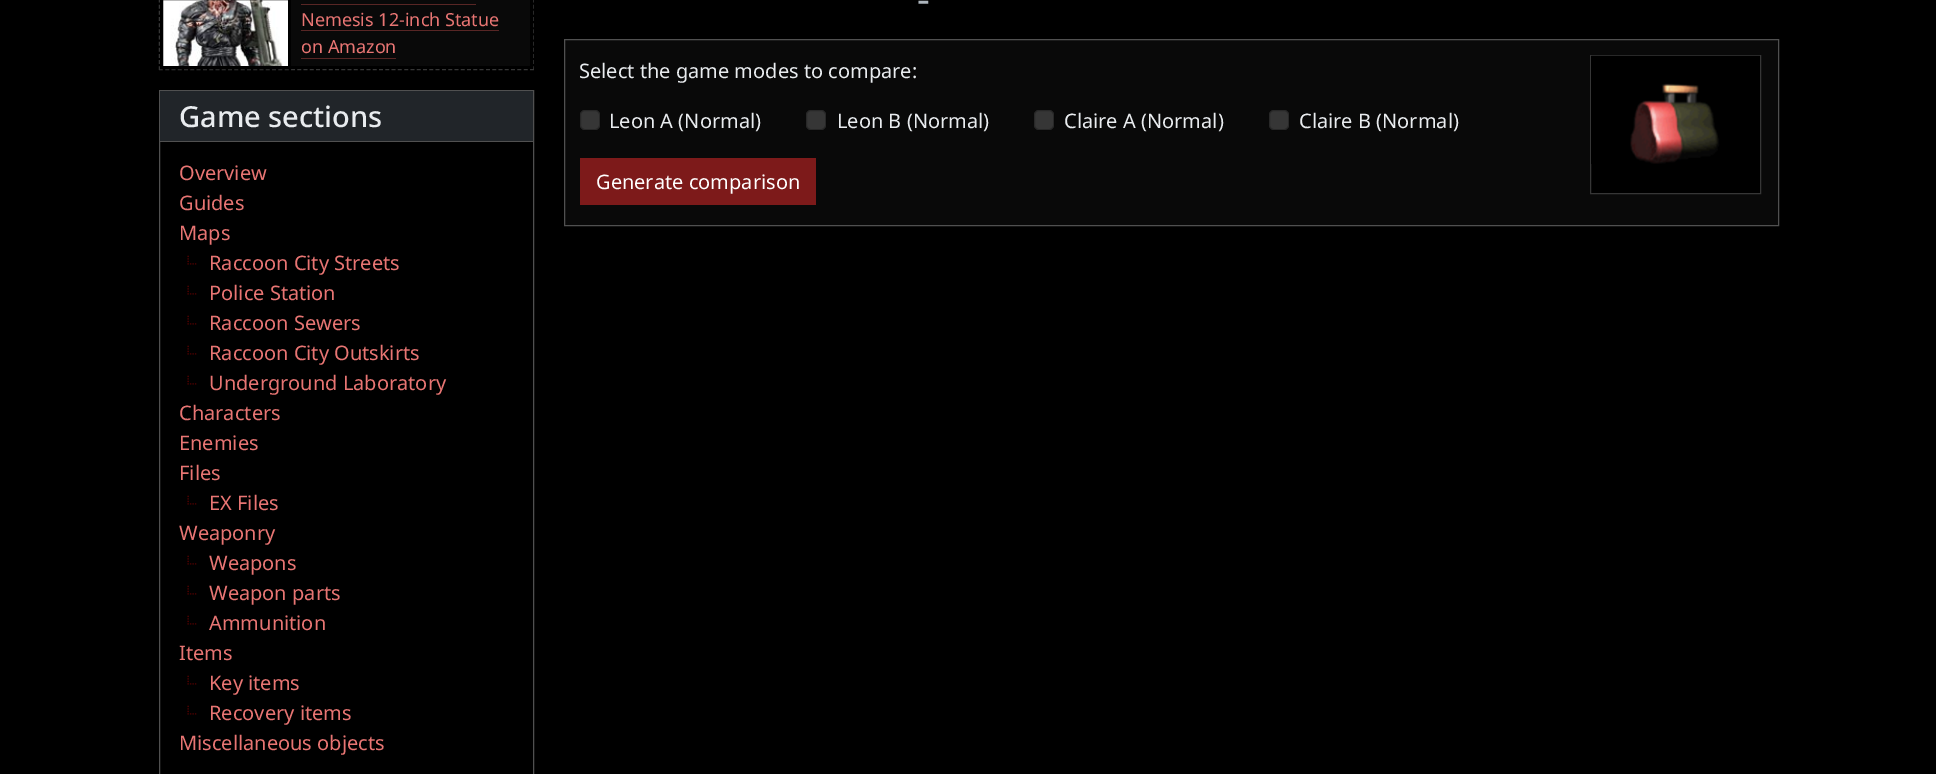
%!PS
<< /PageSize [1936 774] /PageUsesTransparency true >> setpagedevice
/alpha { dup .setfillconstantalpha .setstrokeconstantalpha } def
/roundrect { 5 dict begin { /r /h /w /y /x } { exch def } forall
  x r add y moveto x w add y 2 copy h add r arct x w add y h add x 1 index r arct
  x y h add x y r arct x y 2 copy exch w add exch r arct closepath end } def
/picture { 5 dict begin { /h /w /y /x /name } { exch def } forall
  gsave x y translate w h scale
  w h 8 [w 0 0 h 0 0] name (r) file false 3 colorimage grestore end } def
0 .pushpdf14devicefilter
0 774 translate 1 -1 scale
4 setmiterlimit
0 setgray
0 0 1936 774 rectfill
0.212 setgray
1.2 setlinewidth
[3.75 2.41] 0 setdash
newpath 533 -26 moveto 533 70 lineto stroke
[3.75 2.54] 0 setdash
newpath 159 69.5 moveto 534 69.5 lineto stroke
[3.75 2.41] 0 setdash
newpath 159.5 -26 moveto 159.5 70 lineto stroke
(img1.rgb) 163 0 125 66 picture
0 setgray
3 setlinewidth
[] 0 setdash
161.5 -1.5 128 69 rectstroke
0.035 setgray
291 0 239 66 rectfill
0 setgray
530 0 3 69 rectfill
291 68 242 1 rectfill
/NotoSans-Regular [18 0 0 -18 0 0] selectfont
0.91 0.459 0.451 setrgbcolor
301 26 moveto (Nemesis 12-inch Statue) show
0.345 0.149 0.145 setrgbcolor
301 4 175 1 rectfill
301 30 198 1 rectfill
0.91 0.459 0.451 setrgbcolor
301 53 moveto (on Amazon) show
0.345 0.149 0.145 setrgbcolor
301 58 95 1 rectfill
0.314 setgray
1 setlinewidth
159.5 90.5 374 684 rectstroke
0.129 0.145 0.161 setrgbcolor
160 91 373 50 rectfill
/NotoSans-Medium [29 0 0 -29 0 0] selectfont
0.914 0.925 0.937 setrgbcolor
179 127 moveto (Game sections) show
0.314 setgray
160 141 373 1 rectfill
/NotoSans-Regular [20 0 0 -20 0 0] selectfont
0.91 0.459 0.451 setrgbcolor
179 180 moveto (Overview) show
179 210 moveto (Guides) show
179 240 moveto (Maps) show
(img2.rgb) 187 255 10 10 picture
209 270 moveto (Raccoon City Streets) show
(img2.rgb) 187 285 10 10 picture
209 300 moveto (Police Station) show
(img2.rgb) 187 315 10 10 picture
209 330 moveto (Raccoon Sewers) show
(img2.rgb) 187 345 10 10 picture
209 360 moveto (Raccoon City Outskirts) show
(img2.rgb) 187 375 10 10 picture
209 390 moveto (Underground Laboratory) show
179 420 moveto (Characters) show
179 450 moveto (Enemies) show
179 480 moveto (Files) show
(img2.rgb) 187 495 10 10 picture
209 510 moveto (EX Files) show
179 540 moveto (Weaponry) show
(img2.rgb) 187 555 10 10 picture
209 570 moveto (Weapons) show
(img2.rgb) 187 585 10 10 picture
209 600 moveto (Weapon parts) show
(img2.rgb) 187 615 10 10 picture
209 630 moveto (Ammunition) show
179 660 moveto (Items) show
(img2.rgb) 187 675 10 10 picture
209 690 moveto (Key items) show
(img2.rgb) 187 705 10 10 picture
209 720 moveto (Recovery items) show
179 750 moveto (Miscellaneous objects) show
/NotoSans-Regular [40 0 0 -40 0 0] selectfont
0.678 0.71 0.741 setrgbcolor
917 13 moveto (-) show
0.035 setgray
newpath 564.5 39.5 moveto 1778.5 39.5 lineto 1778.5 225.5 lineto 564.5 225.5 lineto closepath gsave fill grestore
0.314 setgray
stroke
/NotoSans-Regular [20 0 0 -20 0 0] selectfont
0.914 0.925 0.937 setrgbcolor
579 78 moveto (Select the game modes to compare:) show
0.212 setgray
580 110 20 20 5 roundrect fill
0.25 alpha
0 setgray
580.5 110.5 19 19 4.5 roundrect stroke
1 alpha
0.914 0.925 0.937 setrgbcolor
609 128 moveto (Leon A \(Normal\)) show
0.212 setgray
806 110 20 20 5 roundrect fill
0.25 alpha
0 setgray
806.5 110.5 19 19 4.5 roundrect stroke
1 alpha
0.914 0.925 0.937 setrgbcolor
837 128 moveto (Leon B \(Normal\)) show
0.212 setgray
1034 110 20 20 5 roundrect fill
0.25 alpha
0 setgray
1034.5 110.5 19 19 4.5 roundrect stroke
1 alpha
0.914 0.925 0.937 setrgbcolor
1064 128 moveto (Claire A \(Normal\)) show
0.212 setgray
1269 110 20 20 5 roundrect fill
0.25 alpha
0 setgray
1269.5 110.5 19 19 4.5 roundrect stroke
1 alpha
0.914 0.925 0.937 setrgbcolor
1299 128 moveto (Claire B \(Normal\)) show
0.49 0.102 0.102 setrgbcolor
580 158 236 47 rectfill
1 setgray
596 189 moveto (Generate comparison) show
0 setgray
newpath 1590.5 55.5 moveto 1760.5 55.5 lineto 1760.5 193.5 lineto 1590.5 193.5 lineto closepath gsave fill grestore
0.212 setgray
stroke
(img3.rgb) 1591 55 169 109 picture
.poppdf14devicefilter showpage
